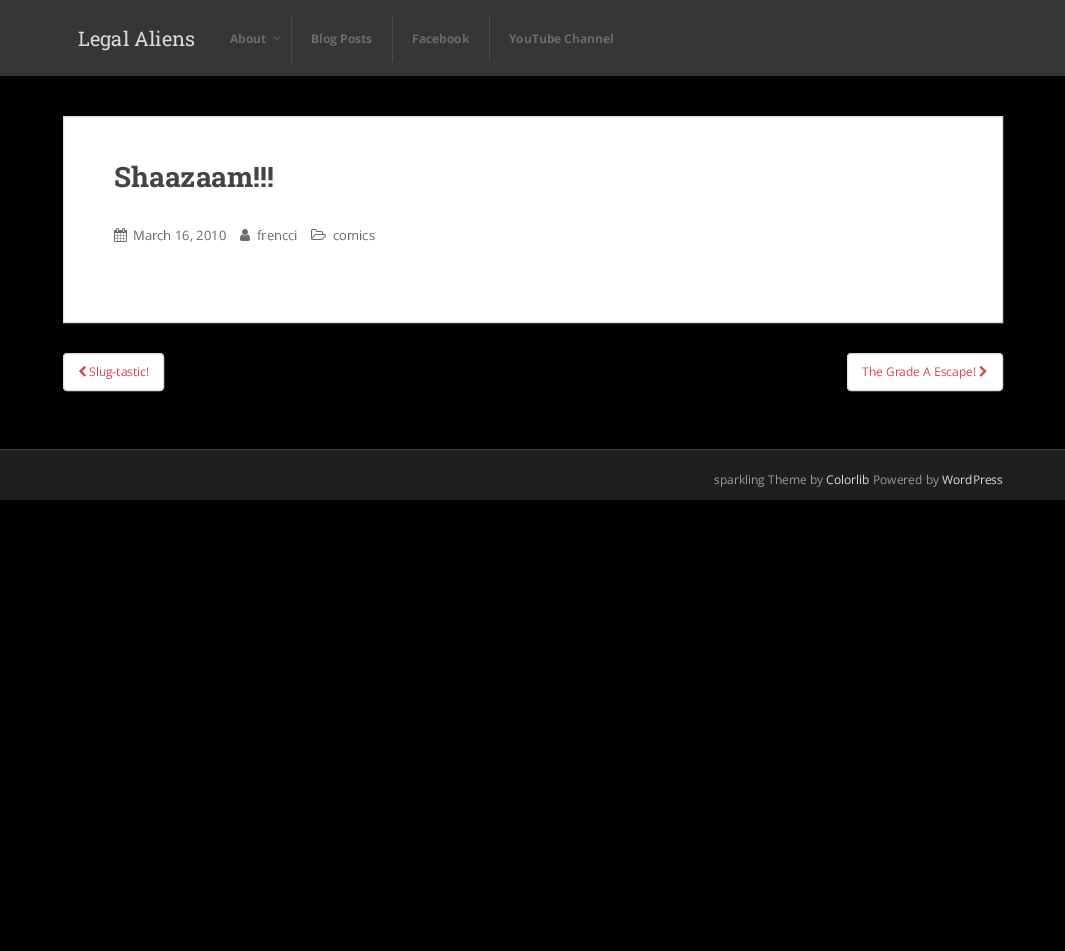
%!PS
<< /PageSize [1065 951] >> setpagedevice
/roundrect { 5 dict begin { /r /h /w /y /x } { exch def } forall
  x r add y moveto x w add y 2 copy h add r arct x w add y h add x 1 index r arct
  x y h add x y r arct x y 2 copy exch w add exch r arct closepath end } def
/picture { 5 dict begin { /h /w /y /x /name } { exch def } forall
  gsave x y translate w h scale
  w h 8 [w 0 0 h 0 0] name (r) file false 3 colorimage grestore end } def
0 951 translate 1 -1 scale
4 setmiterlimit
0 setgray
0 0 1065 951 rectfill
0.212 setgray
0 0 1065 76 rectfill
/RobotoSlab-Regular [20 0 0 -20 0 0] selectfont
0.855 setgray
78 46 moveto (Legal Aliens) show
/OpenSans-Bold [12 0 0 -12 0 0] selectfont
0.42 setgray
230 43 moveto (About) show
(img1.rgb) 273 36 7 4 picture
0.29 setgray
291 15 1 47 rectfill
0.42 setgray
311 43 moveto (Blog Posts) show
0.29 setgray
392 15 1 47 rectfill
0.42 setgray
412 43 moveto (Facebook) show
0.29 setgray
489 15 1 47 rectfill
0.42 setgray
509 43 moveto (YouTube Channel) show
1 setgray
newpath 63.5 116.5 moveto 1002.5 116.5 lineto 1002.5 322.5 lineto 63.5 322.5 lineto closepath gsave fill grestore
0.855 setgray
stroke
/RobotoSlab-Bold [28 0 0 -28 0 0] selectfont
0.267 setgray
114 187 moveto (Shaazaam!!!) show
(img2.rgb) 114 228 13 14 picture
/OpenSans-Regular [13 0 0 -13 0 0] selectfont
0.42 setgray
133 240 moveto (March 16, 2010) show
(img3.rgb) 240 229 10 12 picture
257 240 moveto (frencci) show
(img4.rgb) 311 229 15 11 picture
333 240 moveto (comics) show
1 setgray
63.5 353.5 100 37 3.5 roundrect gsave fill grestore
0.855 setgray
stroke
(img5.rgb) 79 365 7 12 picture
/OpenSans-Regular [12 0 0 -12 0 0] selectfont
0.855 0.267 0.325 setrgbcolor
89 376 moveto (Slug-tastic!) show
1 setgray
847.5 353.5 155 37 3.5 roundrect gsave fill grestore
0.855 setgray
stroke
0.855 0.267 0.325 setrgbcolor
862 376 moveto (The Grade A Escape!) show
(img6.rgb) 979 365 8 12 picture
0.122 setgray
0 450 1065 50 rectfill
0.227 setgray
0 449 1065 1 rectfill
0.6 setgray
714 484 moveto (sparkling Theme by) show
0.855 setgray
826 484 moveto (Colorlib) show
0.6 setgray
873 484 moveto (Powered by) show
0.855 setgray
942 484 moveto (WordPress) show
showpage
